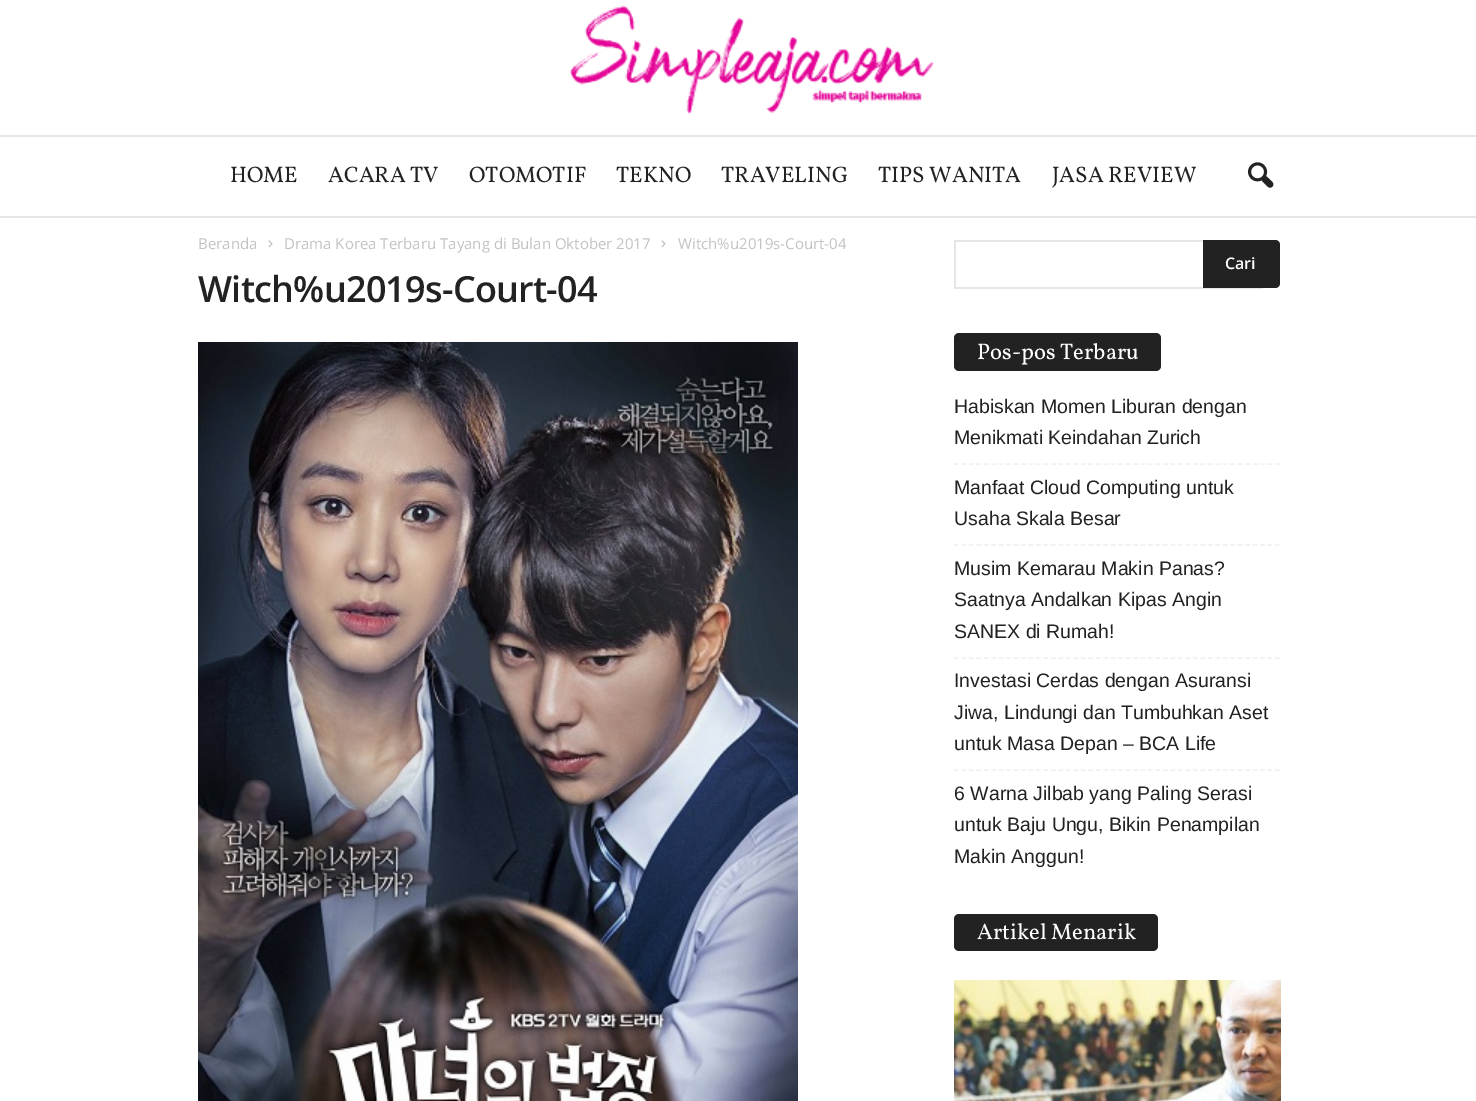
%!PS
<< /PageSize [1476 1101] >> setpagedevice
/roundrect { 5 dict begin { /r /h /w /y /x } { exch def } forall
  x r add y moveto x w add y 2 copy h add r arct x w add y h add x 1 index r arct
  x y h add x y r arct x y 2 copy exch w add exch r arct closepath end } def
/picture { 5 dict begin { /h /w /y /x /name } { exch def } forall
  gsave x y translate w h scale
  w h 8 [w 0 0 h 0 0] name (r) file false 3 colorimage grestore end } def
0 1101 translate 1 -1 scale
4 setmiterlimit
1 setgray
0 0 1476 1101 rectfill
(img1.rgb) 569 5 365 110 picture
0.902 setgray
0 135 1476 2 rectfill
0 216 1476 2 rectfill
/Vollkorn-Regular [22.5 0 0 -22.5 0 0] selectfont
0.133 setgray
230 182 moveto (HOME) show
328 182 moveto (ACARA TV) show
469 182 moveto (OTOMOTIF) show
616 182 moveto (TEKNO) show
721 182 moveto (TRAVELING) show
878 182 moveto (TIPS WANITA) show
1052 182 moveto (JASA REVIEW) show
(img2.rgb) 1248 162 26 26 picture
/OpenSans-Regular [15 0 0 -15 0 0] selectfont
0.765 setgray
198 249 moveto (Beranda) show
(img3.rgb) 268 240 5 8 picture
284 249 moveto (Drama Korea Terbaru Tayang di Bulan Oktober 2017) show
(img3.rgb) 661 240 5 8 picture
678 249 moveto (Witch%u2019s-Court-04) show
/OpenSans-SemiBold [36 0 0 -36 0 0] selectfont
0.133 setgray
198 302 moveto -0.75 0 (Witch%u2019s-Court-04) ashow
(img4.rgb) 198 342 600 759 picture
0.902 setgray
954 240 249 2 rectfill
954 287 309 2 rectfill
954 240 2 48 rectfill
0.133 setgray
newpath 1203 240 moveto 1275 240 lineto 1278 240 1280 242 1280 245 curveto 1280 283 lineto 1280 286 1278 288 1275 288 curveto 1203 288 lineto closepath fill
/OpenSans-SemiBold [16 0 0 -16 0 0] selectfont
1 setgray
1225 269 moveto (Cari) show
0.133 setgray
954 333 207 38 5 roundrect fill
/Vollkorn-Regular [22.5 0 0 -22.5 0 0] selectfont
1 setgray
977 359 moveto (Pos-pos Terbaru) show
0.945 setgray
1.5 setlinewidth
[4.5 2.97] 0 setdash
newpath 954 464 moveto 1279.5 464 lineto stroke
/LiberationSans-Regular [19.5 0 0 -19.5 0 0] selectfont
0.133 setgray
954 413 moveto (Habiskan Momen Liburan dengan) show
954 444 moveto (Menikmati Keindahan Zurich) show
0.945 setgray
newpath 954 545 moveto 1279.5 545 lineto stroke
0.133 setgray
954 494 moveto (Manfaat Cloud Computing untuk) show
954 525 moveto (Usaha Skala Besar) show
0.945 setgray
newpath 954 658 moveto 1279.5 658 lineto stroke
0.133 setgray
954 575 moveto (Musim Kemarau Makin Panas?) show
954 606 moveto (Saatnya Andalkan Kipas Angin) show
954 638 moveto (SANEX di Rumah!) show
0.945 setgray
newpath 954 770 moveto 1279.5 770 lineto stroke
0.133 setgray
954 687 moveto (Investasi Cerdas dengan Asuransi) show
954 719 moveto (Jiwa, Lindungi dan Tumbuhkan Aset) show
954 750 moveto (untuk Masa Depan – BCA Life) show
954 800 moveto (6 Warna Jilbab yang Paling Serasi) show
954 831 moveto (untuk Baju Ungu, Bikin Penampilan) show
954 863 moveto (Makin Anggun!) show
954 914 204 37 5 roundrect fill
/Vollkorn-Regular [22.5 0 0 -22.5 0 0] selectfont
1 setgray
977 939 moveto (Artikel Menarik) show
(img5.rgb) 954 980 327 121 picture
showpage
